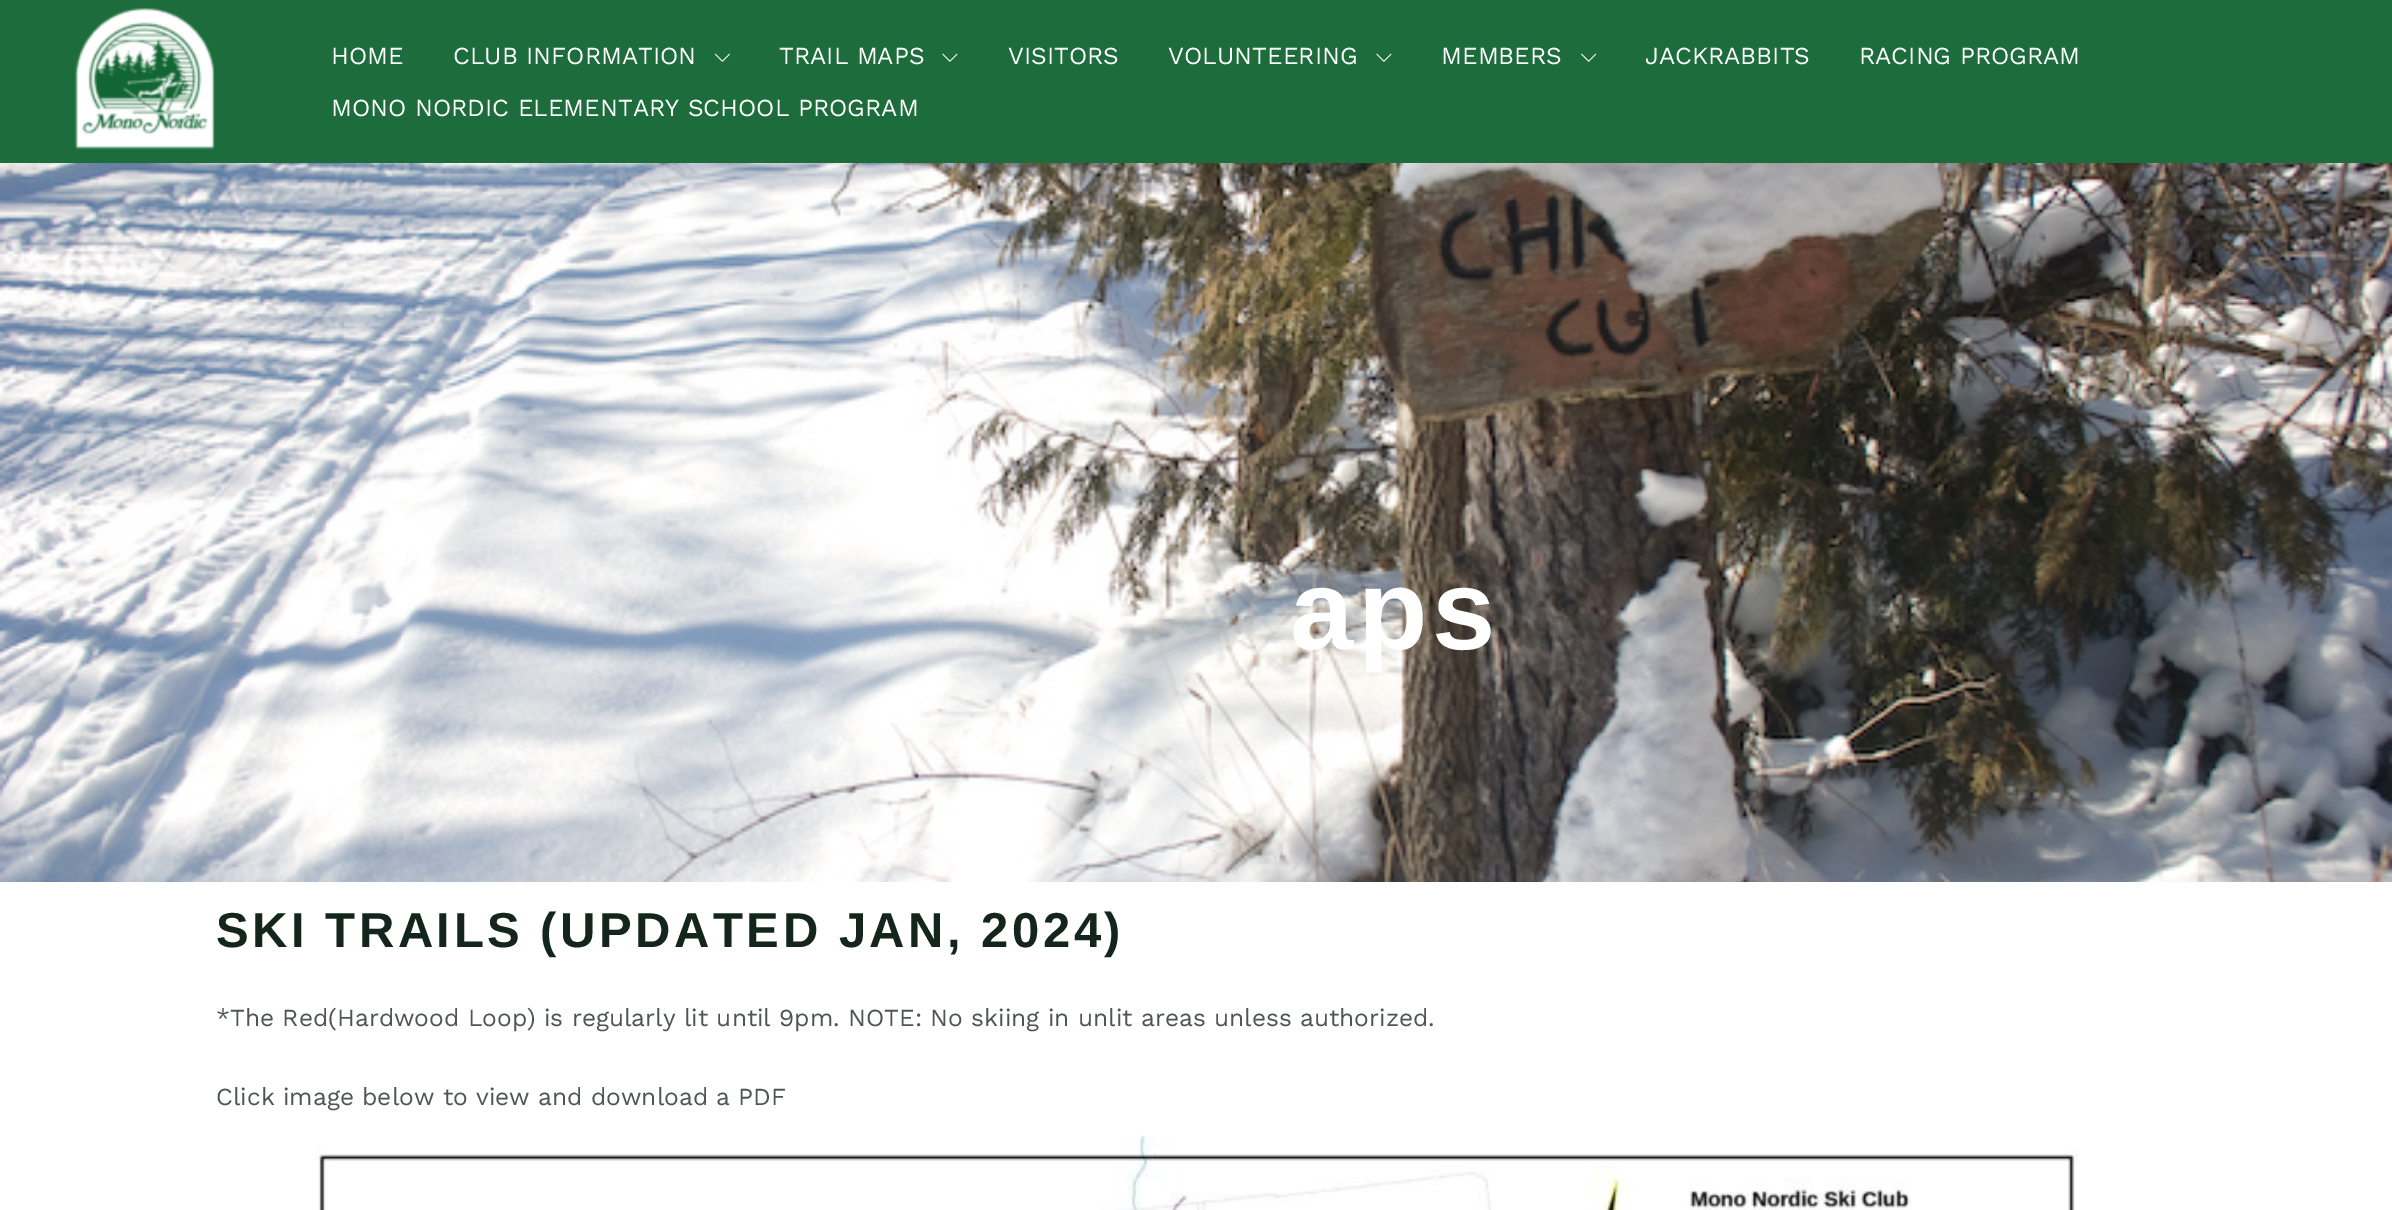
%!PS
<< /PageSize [2392 1210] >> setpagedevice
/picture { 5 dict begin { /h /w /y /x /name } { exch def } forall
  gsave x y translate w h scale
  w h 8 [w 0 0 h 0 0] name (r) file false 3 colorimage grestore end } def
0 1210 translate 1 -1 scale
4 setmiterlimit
1 setgray
0 0 2392 1210 rectfill
0.114 0.427 0.235 setrgbcolor
0 0 2392 163 rectfill
(img1.rgb) 75 7 140 143 picture
/WorkSans-Regular [24.5 0 0 -24.5 0 0] selectfont
1 setgray
331 64 moveto (HOME) show
453 64 moveto (CLUB INFORMATION) show
(img2.rgb) 714 53 16 9 picture
779 64 moveto (TRAIL MAPS) show
(img3.rgb) 942 53 16 9 picture
1008 64 moveto (VISITORS) show
1168 64 moveto (VOLUNTEERING) show
(img3.rgb) 1376 53 16 9 picture
1441 64 moveto (MEMBERS) show
(img4.rgb) 1581 53 16 9 picture
1645 64 moveto (JACKRABBITS) show
1859 64 moveto (RACING PROGRAM) show
331 116 moveto (MONO NORDIC ELEMENTARY SCHOOL PROGRAM) show
(img5.rgb) 0 163 2392 719 picture
/LiberationSans-Bold [114 0 0 -114 0 0] selectfont
1290 649 moveto 4.5 0 (aps) ashow
/LiberationSans-Bold [49 0 0 -49 0 0] selectfont
0.078 0.149 0.11 setrgbcolor
216 947 moveto 3.5 0 (SKI TRAILS \(UPDATED JAN, 2024\)) ashow
/WorkSans-Regular [24.5 0 0 -24.5 0 0] selectfont
0.306 0.337 0.322 setrgbcolor
216 1026 moveto (*The Red\(Hardwood Loop\) is regularly lit until 9pm. NOTE: No skiing in unlit areas unless authorized.) show
216 1105 moveto (Click image below to view and download a PDF) show
(img6.rgb) 315 1135 1764 75 picture
showpage
